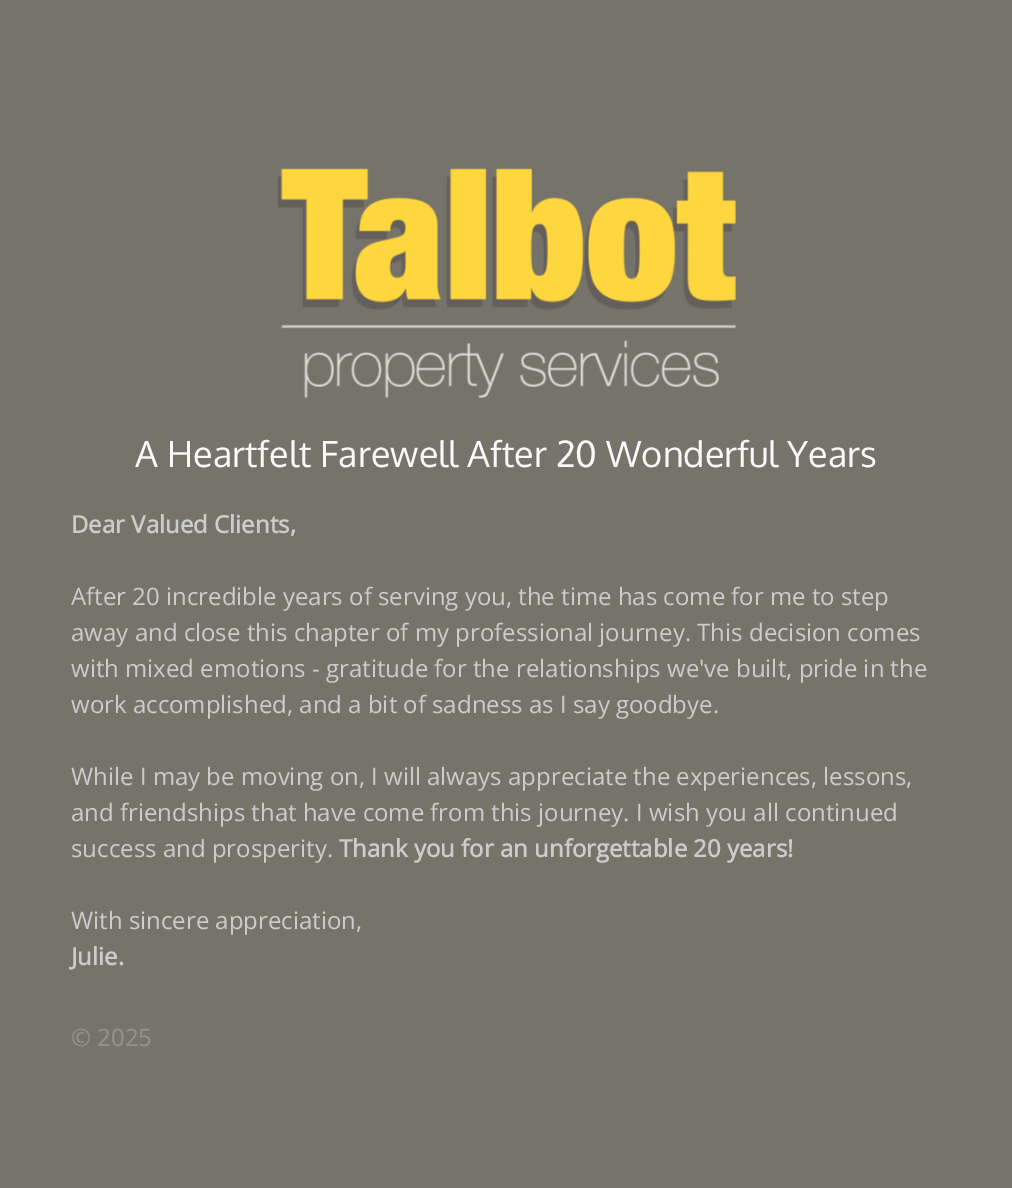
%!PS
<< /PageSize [1012 1188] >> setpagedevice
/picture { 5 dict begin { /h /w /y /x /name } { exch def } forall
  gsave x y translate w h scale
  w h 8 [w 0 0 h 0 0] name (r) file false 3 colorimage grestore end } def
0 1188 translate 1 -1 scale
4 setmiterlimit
0.463 0.451 0.416 setrgbcolor
0 0 1012 1188 rectfill
(img1.rgb) 277 168 460 231 picture
/Oxygen-Regular [36 0 0 -36 0 0] selectfont
0.98 setgray
135 467 moveto (A Heartfelt Farewell After 20 Wonderful Years) show
/OpenSans-Bold [24 0 0 -24 0 0] selectfont
0.8 setgray
71 533 moveto (Dear Valued Clients,) show
/OpenSans-Regular [24 0 0 -24 0 0] selectfont
71 605 moveto (After 20 incredible years of serving you, the time has come for me to step) show
71 641 moveto (away and close this chapter of my professional journey. This decision comes) show
71 677 moveto (with mixed emotions - gratitude for the relationships we've built, pride in the) show
71 713 moveto (work accomplished, and a bit of sadness as I say goodbye.) show
71 785 moveto (While I may be moving on, I will always appreciate the experiences, lessons,) show
71 821 moveto (and friendships that have come from this journey. I wish you all continued) show
71 857 moveto (success and prosperity.) show
/OpenSans-Bold [24 0 0 -24 0 0] selectfont
339 857 moveto (Thank you for an unforgettable 20 years!) show
/OpenSans-Regular [24 0 0 -24 0 0] selectfont
71 929 moveto (With sincere appreciation,) show
/OpenSans-Bold [24 0 0 -24 0 0] selectfont
71 965 moveto (Julie.) show
/OpenSans-Regular [24 0 0 -24 0 0] selectfont
0.592 0.58 0.557 setrgbcolor
71 1046 moveto (© 2025) show
showpage
